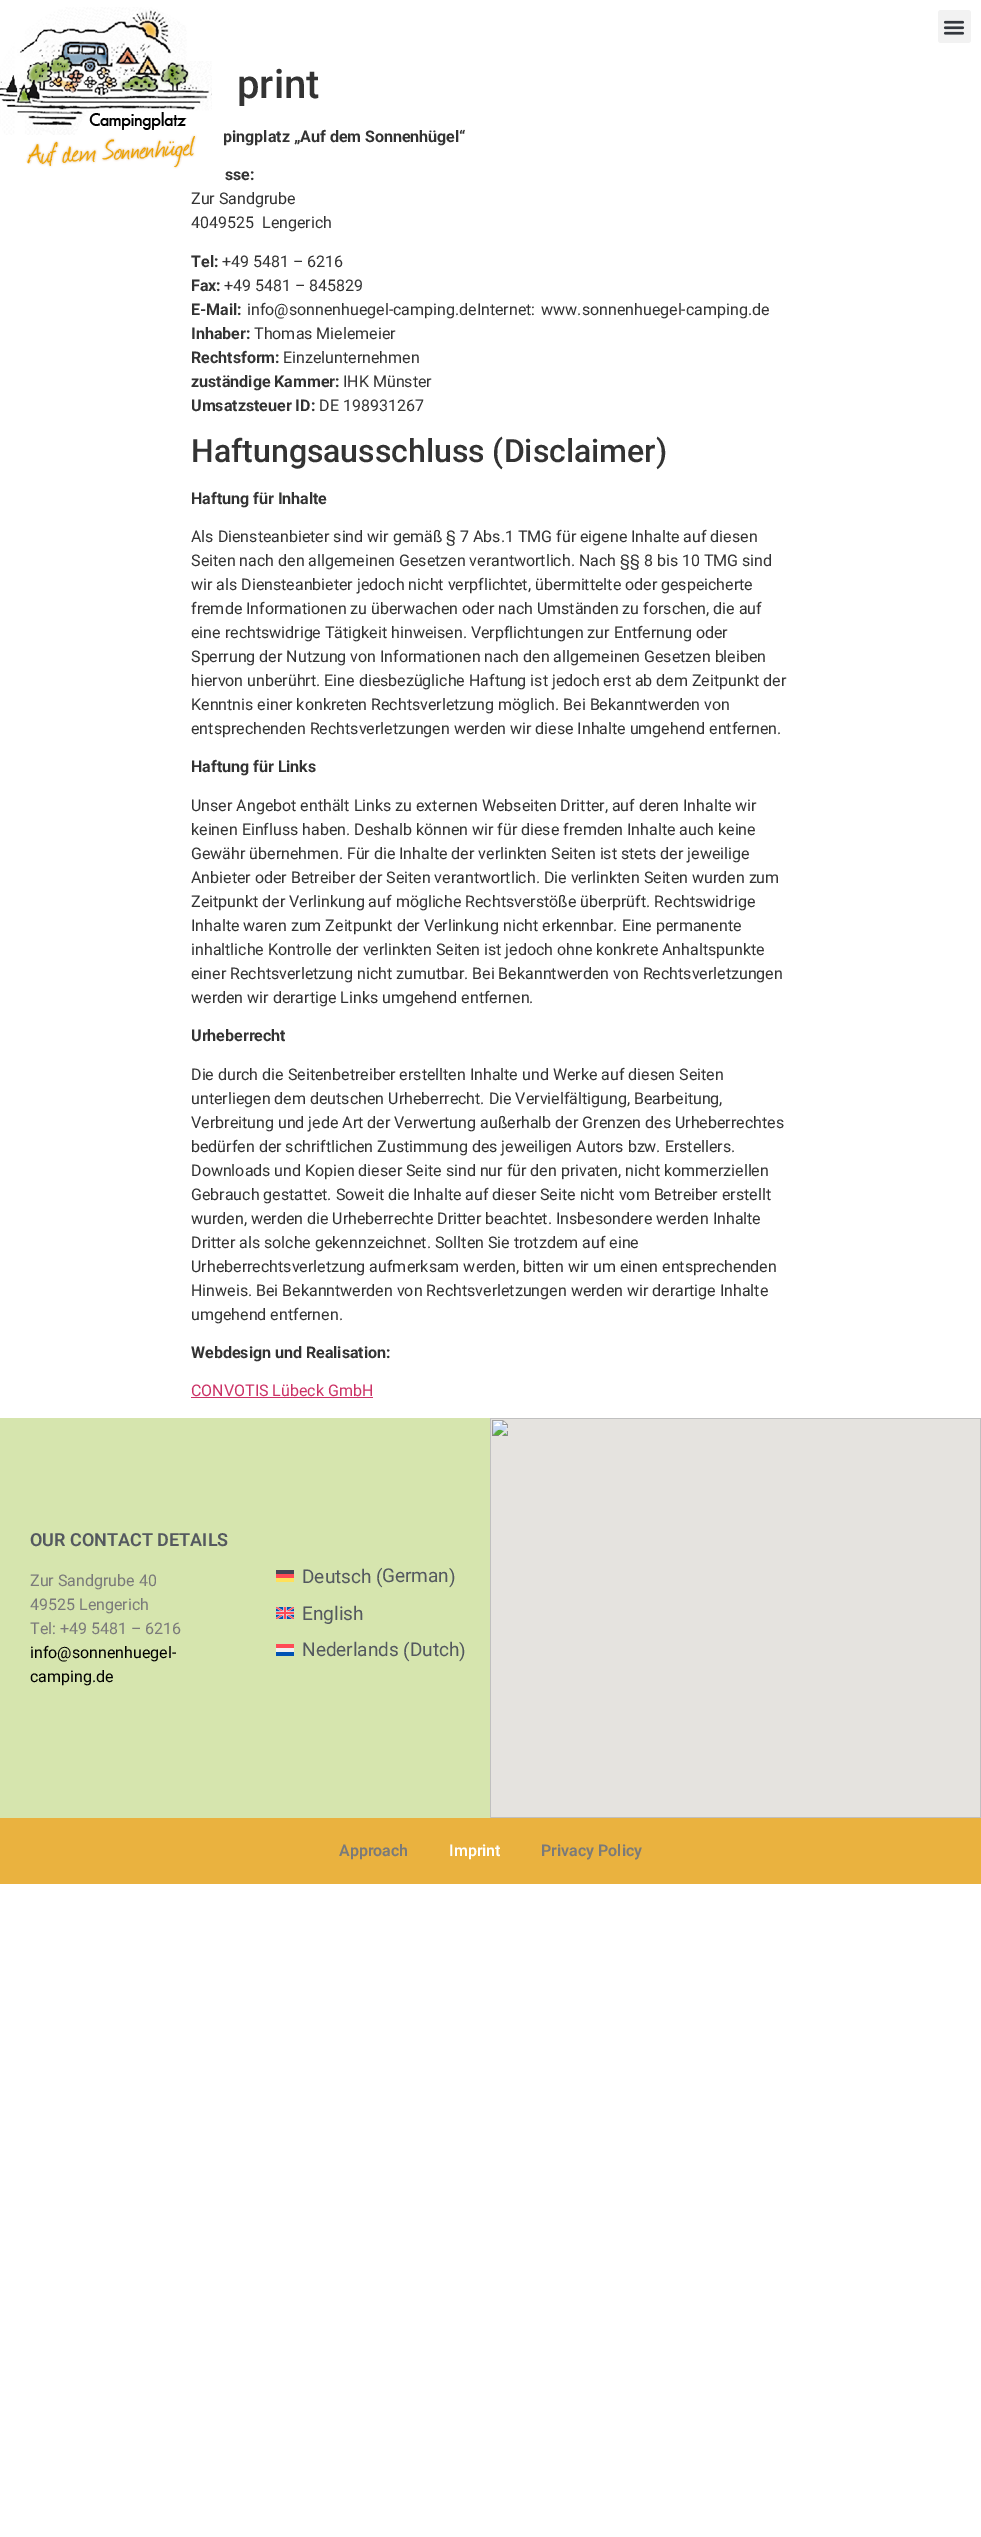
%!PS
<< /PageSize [981 2537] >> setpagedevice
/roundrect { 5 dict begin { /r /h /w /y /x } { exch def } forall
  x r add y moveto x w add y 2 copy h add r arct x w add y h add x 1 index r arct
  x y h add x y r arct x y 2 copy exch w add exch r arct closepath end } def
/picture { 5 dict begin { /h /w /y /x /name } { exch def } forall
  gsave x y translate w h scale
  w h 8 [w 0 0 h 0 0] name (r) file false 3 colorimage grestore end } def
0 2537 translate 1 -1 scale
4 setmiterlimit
1 setgray
0 0 981 2537 rectfill
(img1.rgb) 0 7 221 174 picture
0.949 setgray
938 10 33 33 3 roundrect fill
(img2.rgb) 943 20 22 15 picture
/Roboto-Medium [40 0 0 -40 0 0] selectfont
0.2 setgray
237 98 moveto (print) show
/Roboto-Bold [16 0 0 -16 0 0] selectfont
223 142 moveto (pingplatz „Auf dem Sonnenhügel“) show
225 180 moveto (sse:) show
/Roboto-Regular [16 0 0 -16 0 0] selectfont
191 204 moveto (Zur Sandgrube) show
191 228 moveto 4 0 32 (4049525 Lengerich) widthshow
/Roboto-Bold [16 0 0 -16 0 0] selectfont
191 267 moveto (Tel:) show
/Roboto-Regular [16 0 0 -16 0 0] selectfont
222 267 moveto (+49 5481 – 6216) show
/Roboto-Bold [16 0 0 -16 0 0] selectfont
191 291 moveto (Fax:) show
/Roboto-Regular [16 0 0 -16 0 0] selectfont
224 291 moveto (+49 5481 – 845829) show
/Roboto-Bold [16 0 0 -16 0 0] selectfont
191 315 moveto (E-Mail:) show
/Roboto-Regular [16 0 0 -16 0 0] selectfont
247 315 moveto 2 0 32 (info@sonnenhuegel-camping.deInternet: www.sonnenhuegel-camping.de) widthshow
/Roboto-Bold [16 0 0 -16 0 0] selectfont
191 339 moveto (Inhaber:) show
/Roboto-Regular [16 0 0 -16 0 0] selectfont
254 339 moveto (Thomas Mielemeier) show
/Roboto-Bold [16 0 0 -16 0 0] selectfont
191 363 moveto (Rechtsform:) show
/Roboto-Regular [16 0 0 -16 0 0] selectfont
283 363 moveto (Einzelunternehmen) show
/Roboto-Bold [16 0 0 -16 0 0] selectfont
191 387 moveto (zuständige Kammer:) show
/Roboto-Regular [16 0 0 -16 0 0] selectfont
343 387 moveto (IHK Münster) show
/Roboto-Bold [16 0 0 -16 0 0] selectfont
191 411 moveto (Umsatzsteuer ID:) show
/Roboto-Regular [16 0 0 -16 0 0] selectfont
319 411 moveto (DE 198931267) show
/Roboto-Medium [32 0 0 -32 0 0] selectfont
191 462 moveto (Haftungsausschluss \(Disclaimer\)) show
/Roboto-Bold [16 0 0 -16 0 0] selectfont
191 504 moveto (Haftung für Inhalte) show
/Roboto-Regular [16 0 0 -16 0 0] selectfont
191 542 moveto (Als Diensteanbieter sind wir gemäß § 7 Abs.1 TMG für eigene Inhalte auf diesen) show
191 566 moveto (Seiten nach den allgemeinen Gesetzen verantwortlich. Nach §§ 8 bis 10 TMG sind) show
191 590 moveto (wir als Diensteanbieter jedoch nicht verpflichtet, übermittelte oder gespeicherte) show
191 614 moveto (fremde Informationen zu überwachen oder nach Umständen zu forschen, die auf) show
191 638 moveto (eine rechtswidrige Tätigkeit hinweisen. Verpflichtungen zur Entfernung oder) show
191 662 moveto (Sperrung der Nutzung von Informationen nach den allgemeinen Gesetzen bleiben) show
191 686 moveto (hiervon unberührt. Eine diesbezügliche Haftung ist jedoch erst ab dem Zeitpunkt der) show
191 710 moveto (Kenntnis einer konkreten Rechtsverletzung möglich. Bei Bekanntwerden von) show
191 734 moveto (entsprechenden Rechtsverletzungen werden wir diese Inhalte umgehend entfernen.) show
/Roboto-Bold [16 0 0 -16 0 0] selectfont
191 772 moveto (Haftung für Links) show
/Roboto-Regular [16 0 0 -16 0 0] selectfont
191 811 moveto (Unser Angebot enthält Links zu externen Webseiten Dritter, auf deren Inhalte wir) show
191 835 moveto (keinen Einfluss haben. Deshalb können wir für diese fremden Inhalte auch keine) show
191 859 moveto (Gewähr übernehmen. Für die Inhalte der verlinkten Seiten ist stets der jeweilige) show
191 883 moveto (Anbieter oder Betreiber der Seiten verantwortlich. Die verlinkten Seiten wurden zum) show
191 907 moveto (Zeitpunkt der Verlinkung auf mögliche Rechtsverstöße überprüft. Rechtswidrige) show
191 931 moveto (Inhalte waren zum Zeitpunkt der Verlinkung nicht erkennbar. Eine permanente) show
191 955 moveto (inhaltliche Kontrolle der verlinkten Seiten ist jedoch ohne konkrete Anhaltspunkte) show
191 979 moveto (einer Rechtsverletzung nicht zumutbar. Bei Bekanntwerden von Rechtsverletzungen) show
191 1003 moveto (werden wir derartige Links umgehend entfernen.) show
/Roboto-Bold [16 0 0 -16 0 0] selectfont
191 1041 moveto (Urheberrecht) show
/Roboto-Regular [16 0 0 -16 0 0] selectfont
191 1080 moveto (Die durch die Seitenbetreiber erstellten Inhalte und Werke auf diesen Seiten) show
191 1104 moveto (unterliegen dem deutschen Urheberrecht. Die Vervielfältigung, Bearbeitung,) show
191 1128 moveto (Verbreitung und jede Art der Verwertung außerhalb der Grenzen des Urheberrechtes) show
191 1152 moveto (bedürfen der schriftlichen Zustimmung des jeweiligen Autors bzw. Erstellers.) show
191 1176 moveto (Downloads und Kopien dieser Seite sind nur für den privaten, nicht kommerziellen) show
191 1200 moveto (Gebrauch gestattet. Soweit die Inhalte auf dieser Seite nicht vom Betreiber erstellt) show
191 1224 moveto (wurden, werden die Urheberrechte Dritter beachtet. Insbesondere werden Inhalte) show
191 1248 moveto (Dritter als solche gekennzeichnet. Sollten Sie trotzdem auf eine) show
191 1272 moveto (Urheberrechtsverletzung aufmerksam werden, bitten wir um einen entsprechenden) show
191 1296 moveto (Hinweis. Bei Bekanntwerden von Rechtsverletzungen werden wir derartige Inhalte) show
191 1320 moveto (umgehend entfernen.) show
/Roboto-Bold [16 0 0 -16 0 0] selectfont
191 1358 moveto (Webdesign und Realisation:) show
/Roboto-Regular [16 0 0 -16 0 0] selectfont
0.8 0.2 0.4 setrgbcolor
191 1396 moveto (CONVOTIS Lübeck GmbH) show
191 1397 182 1 rectfill
0.839 0.898 0.682 setrgbcolor
0 1418 490 400 rectfill
/Roboto-SemiBold [18 0 0 -18 0 0] selectfont
0.329 0.349 0.373 setrgbcolor
30 1546 moveto (OUR CONTACT DETAILS) show
/Roboto-Regular [16 0 0 -16 0 0] selectfont
0.478 setgray
30 1586 moveto (Zur Sandgrube 40) show
30 1610 moveto (49525 Lengerich) show
30 1634 moveto (Tel: +49 5481 – 6216) show
0 setgray
30 1658 moveto (info@sonnenhuegel-) show
30 1682 moveto (camping.de) show
0.275 0.275 0.333 setrgbcolor
276 1570 18 4 rectfill
/Roboto-Regular [19 0 0 -19 0 0] selectfont
0.329 0.349 0.373 setrgbcolor
302 1583 moveto (Deutsch \() show
382 1582 moveto (German) show
449 1583 moveto (\)) show
1 0.294 0.333 setrgbcolor
276 1574 18 4 rectfill
1 0.882 0.353 setrgbcolor
276 1578 18 4 rectfill
(img3.rgb) 276 1607 18 12 picture
0.329 0.349 0.373 setrgbcolor
302 1620 moveto (English) show
1 0.294 0.333 setrgbcolor
276 1644 18 4 rectfill
0.329 0.349 0.373 setrgbcolor
302 1656 moveto (Nederlands) show
403 1657 moveto (\() show
410 1656 moveto (Dutch) show
459 1657 moveto (\)) show
0.941 setgray
276 1648 18 4 rectfill
0 0.322 0.706 setrgbcolor
276 1652 18 4 rectfill
(img4.rgb) 490 1418 491 400 picture
0.918 0.698 0.247 setrgbcolor
0 1818 981 66 rectfill
/Roboto-SemiBold [16 0 0 -16 0 0] selectfont
0.478 setgray
339 1856 moveto (Approach) show
1 setgray
449 1856 moveto (Imprint) show
0.478 setgray
541 1856 moveto (Privacy Policy) show
showpage
